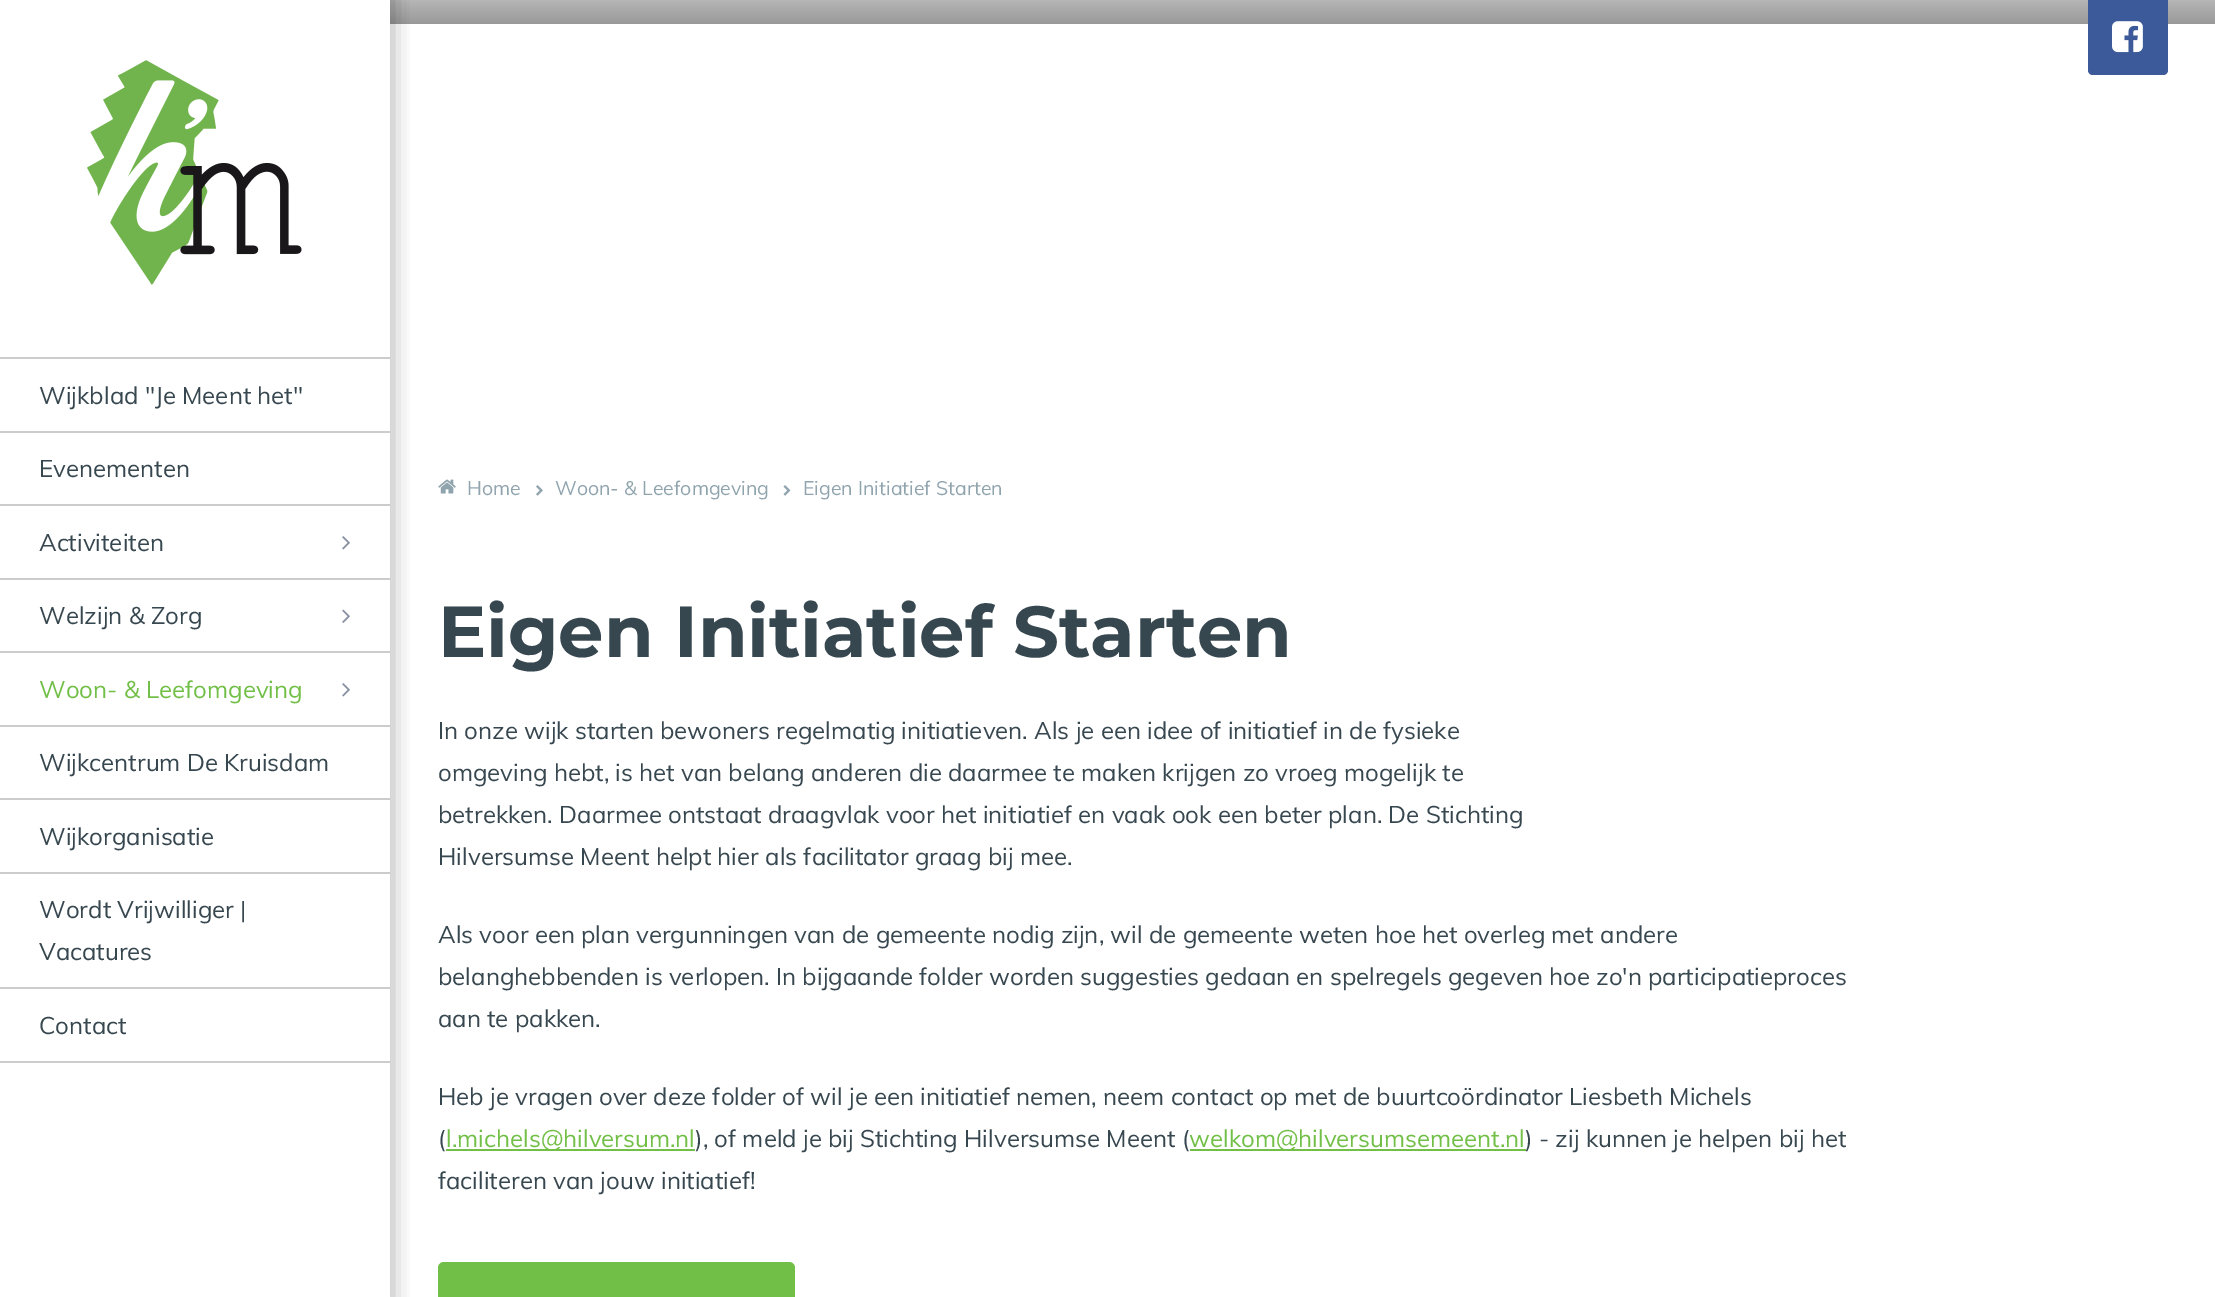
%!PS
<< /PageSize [2215 1297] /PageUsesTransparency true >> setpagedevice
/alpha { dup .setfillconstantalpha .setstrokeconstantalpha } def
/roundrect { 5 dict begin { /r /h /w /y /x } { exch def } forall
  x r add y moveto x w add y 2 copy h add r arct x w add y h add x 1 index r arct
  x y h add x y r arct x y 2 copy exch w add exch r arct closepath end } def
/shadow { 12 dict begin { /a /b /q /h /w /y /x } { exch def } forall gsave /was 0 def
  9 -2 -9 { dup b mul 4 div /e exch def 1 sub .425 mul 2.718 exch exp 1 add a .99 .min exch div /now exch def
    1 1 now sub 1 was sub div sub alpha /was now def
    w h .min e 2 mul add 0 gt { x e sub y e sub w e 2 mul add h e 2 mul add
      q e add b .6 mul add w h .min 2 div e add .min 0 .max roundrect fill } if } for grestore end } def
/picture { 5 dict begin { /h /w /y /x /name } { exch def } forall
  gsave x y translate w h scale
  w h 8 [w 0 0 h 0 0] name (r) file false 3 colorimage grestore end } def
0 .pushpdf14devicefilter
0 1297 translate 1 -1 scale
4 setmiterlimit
1 setgray
0 0 2215 1297 rectfill
gsave newpath 390 0 moveto 2215 0 lineto 2215 24 lineto 390 24 lineto closepath clip newpath
<< /ShadingType 2 /ColorSpace /DeviceRGB /Coords [1303 24 1303 -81] /Extend [true true] /Function << /FunctionType 3 /Domain [0 1] /Functions [<< /FunctionType 2 /Domain [0 1] /C0 [0.6 0.6 0.6] /C1 [0.8 0.8 0.8] /N 1 >> << /FunctionType 2 /Domain [0 1] /C0 [0.8 0.8 0.8] /C1 [1 1 1] /N 1 >>] /Bounds [0.4] /Encode [0 1 0 1] >> >> shfill grestore
gsave
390 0 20 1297 rectclip
0 setgray
-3 -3 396 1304 0 11 0.3 shadow
grestore
(img1.rgb) 87 60 215 225 picture
0.8 setgray
0 357 390 2 rectfill
/Muli-Regular [24 0 0 -24 0 0] selectfont
0.216 0.278 0.31 setrgbcolor
39 404 moveto (Wijkblad "Je Meent het") show
0.8 setgray
0 431 390 2 rectfill
0.216 0.278 0.31 setrgbcolor
39 477 moveto (Evenementen) show
0.8 setgray
0 504 390 2 rectfill
0.216 0.278 0.31 setrgbcolor
39 551 moveto (Activiteiten) show
(img2.rgb) 342 536 8 14 picture
0.8 setgray
0 578 390 2 rectfill
0.216 0.278 0.31 setrgbcolor
39 624 moveto (Welzijn & Zorg) show
(img3.rgb) 342 609 8 14 picture
0.8 setgray
0 651 390 2 rectfill
0.443 0.749 0.275 setrgbcolor
39 698 moveto (Woon- & Leefomgeving) show
(img2.rgb) 342 683 8 14 picture
0.8 setgray
0 725 390 2 rectfill
0.216 0.278 0.31 setrgbcolor
39 771 moveto (Wijkcentrum De Kruisdam) show
0.8 setgray
0 798 390 2 rectfill
0.216 0.278 0.31 setrgbcolor
39 845 moveto (Wijkorganisatie) show
0.8 setgray
0 872 390 2 rectfill
0.216 0.278 0.31 setrgbcolor
39 918 moveto (Wordt Vrijwilliger |) show
39 960 moveto (Vacatures) show
0.8 setgray
0 987 390 2 rectfill
0 1061 390 2 rectfill
0.216 0.278 0.31 setrgbcolor
39 1034 moveto (Contact) show
0.235 0.353 0.6 setrgbcolor
newpath 2088 0 moveto 2168 0 lineto 2168 70 lineto 2168 73 2166 75 2163 75 curveto 2093 75 lineto 2090 75 2088 73 2088 70 curveto closepath fill
(img4.rgb) 2112 21 31 32 picture
(img5.rgb) 438 479 18 15 picture
/Muli-Regular [19.5 0 0 -19.5 0 0] selectfont
0.565 0.643 0.682 setrgbcolor
467 495 moveto (Home) show
(img6.rgb) 536 485 7 11 picture
555 495 moveto (Woon- & Leefomgeving) show
(img7.rgb) 783 485 8 11 picture
803 495 moveto (Eigen Initiatief Starten) show
/Montserrat-Bold [72 0 0 -72 0 0] selectfont
0.216 0.278 0.31 setrgbcolor
438 657 moveto (Eigen Initiatief Starten) show
/Muli-Regular [24 0 0 -24 0 0] selectfont
438 739 moveto (In onze wijk starten bewoners regelmatig initiatieven. Als je een idee of initiatief in de fysieke) show
438 781 moveto (omgeving hebt, is het van belang anderen die daarmee te maken krijgen zo vroeg mogelijk te) show
438 823 moveto (betrekken. Daarmee ontstaat draagvlak voor het initiatief en vaak ook een beter plan. De Stichting) show
438 865 moveto (Hilversumse Meent helpt hier als facilitator graag bij mee.) show
438 943 moveto (Als voor een plan vergunningen van de gemeente nodig zijn, wil de gemeente weten hoe het overleg met andere) show
438 985 moveto (belanghebbenden is verlopen. In bijgaande folder worden suggesties gedaan en spelregels gegeven hoe zo'n participatieproces) show
438 1027 moveto (aan te pakken.) show
438 1105 moveto (Heb je vragen over deze folder of wil je een initiatief nemen, neem contact op met de buurtcoördinator Liesbeth Michels) show
438 1147 moveto (\() show
0.443 0.749 0.275 setrgbcolor
446 1149 249 2 rectfill
446 1147 moveto (l.michels@hilversum.nl) show
0.216 0.278 0.31 setrgbcolor
695 1147 moveto (\), of meld je bij Stichting Hilversumse Meent \() show
0.443 0.749 0.275 setrgbcolor
1190 1149 336 2 rectfill
1189 1147 moveto (welkom@hilversumsemeent.nl) show
0.216 0.278 0.31 setrgbcolor
1525 1147 moveto (\) - zij kunnen je helpen bij het) show
438 1189 moveto (faciliteren van jouw initiatief!) show
0.443 0.749 0.275 setrgbcolor
438 1262 357 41 6 roundrect fill
.poppdf14devicefilter showpage
